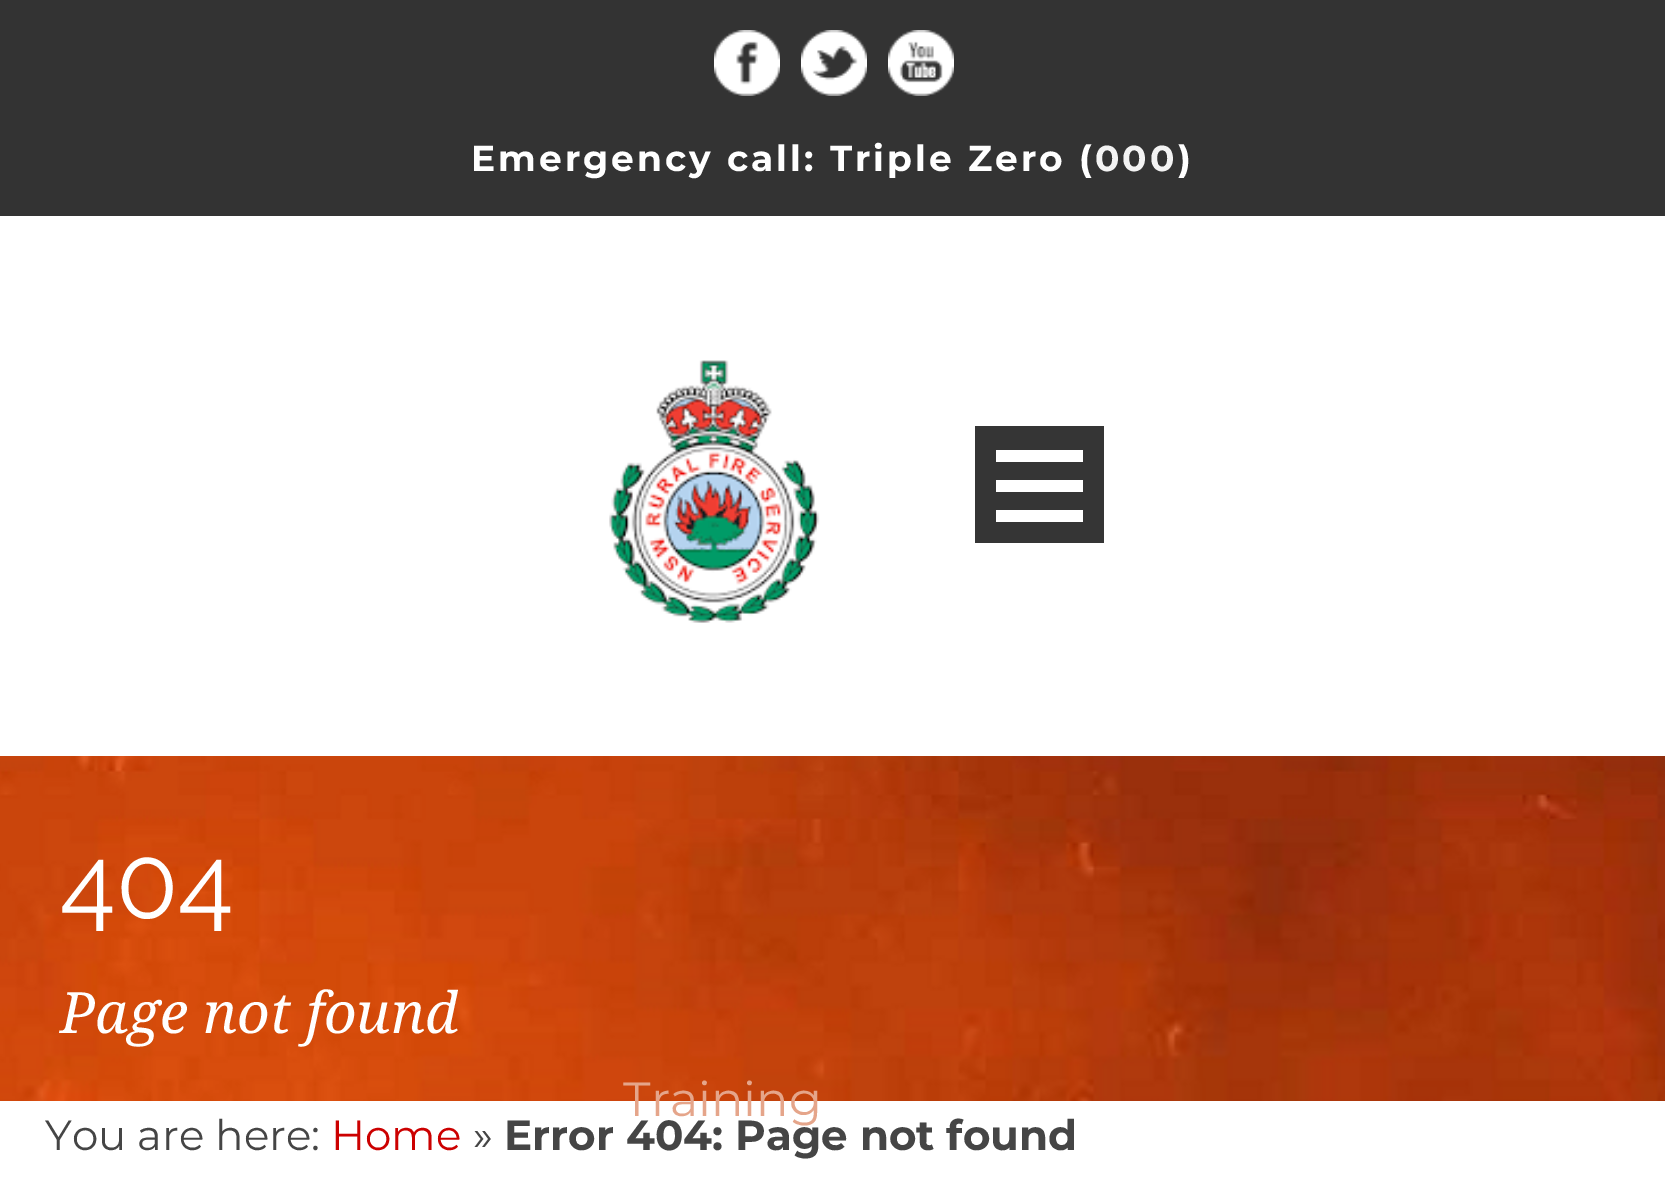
%!PS
<< /PageSize [1665 1202] >> setpagedevice
/picture { 5 dict begin { /h /w /y /x /name } { exch def } forall
  gsave x y translate w h scale
  w h 8 [w 0 0 h 0 0] name (r) file false 3 colorimage grestore end } def
0 1202 translate 1 -1 scale
4 setmiterlimit
1 setgray
0 0 1665 1202 rectfill
(img1.rgb) 0 756 1665 345 picture
/Raleway-Regular [102 0 0 -102 0 0] selectfont
60 918 moveto (404) show
/DroidSerif-Italic [57 0 0 -57 0 0] selectfont
60 1033 moveto (Page not found) show
0.2 setgray
0 0 1665 216 rectfill
(img2.rgb) 714 30 66 66 picture
(img3.rgb) 801 30 66 66 picture
(img4.rgb) 888 30 66 66 picture
/Montserrat-Bold [36 0 0 -36 0 0] selectfont
1 setgray
471 171 moveto 3 0 (Emergency call: Triple Zero \() ashow
0.953 setgray
1095 171 moveto 3 0 (000) ashow
1 setgray
1178 171 moveto 3 0 (\)) ashow
(img5.rgb) 609 360 211 263 picture
0.208 setgray
975 426 129 117 rectfill
1 setgray
996 510 87 12 rectfill
996 480 87 12 rectfill
996 450 87 12 rectfill
/Montserrat-Regular [48 0 0 -48 0 0] selectfont
0.898 0.647 0.541 setrgbcolor
623 1116 moveto (Training) show
/Montserrat-Regular [42 0 0 -42 0 0] selectfont
0.271 setgray
45 1150 moveto (You are here:) show
0.8 0 0 setrgbcolor
331 1150 moveto (Home) show
0.271 setgray
473 1150 moveto (») show
/Montserrat-Bold [42 0 0 -42 0 0] selectfont
504 1150 moveto (Error 404: Page not found) show
showpage
